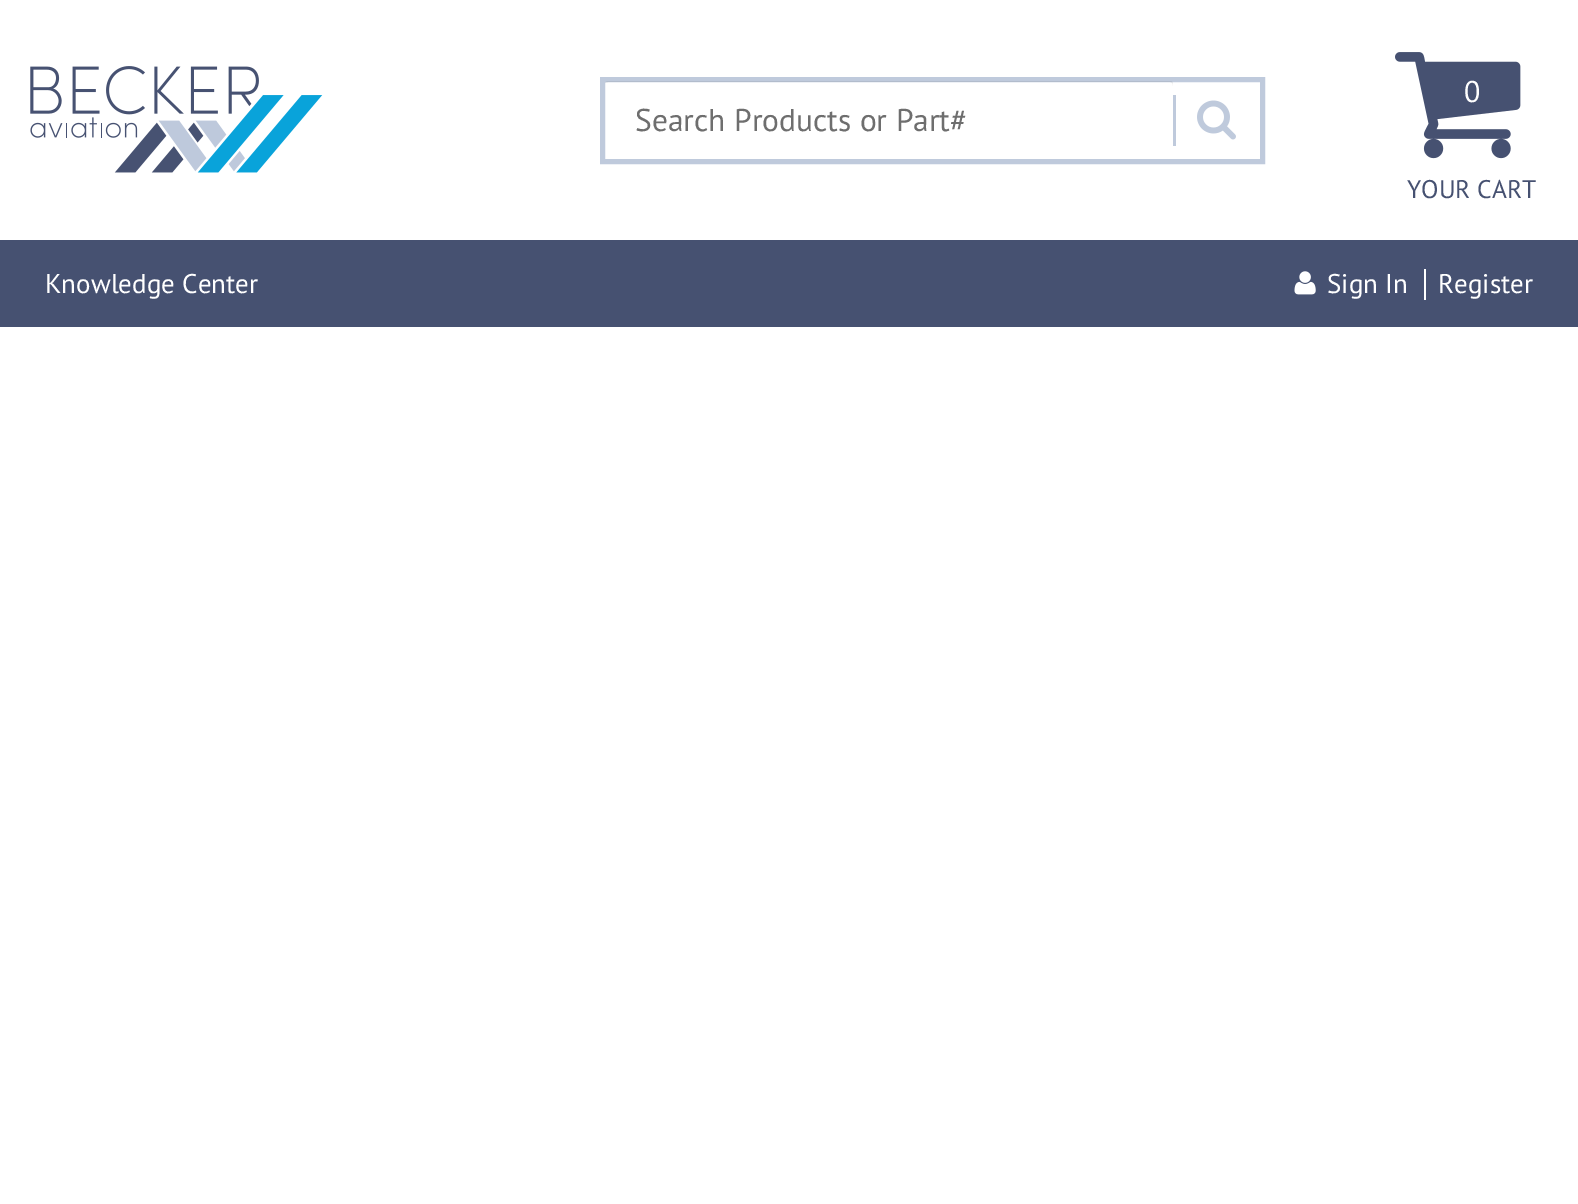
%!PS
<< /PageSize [1578 1204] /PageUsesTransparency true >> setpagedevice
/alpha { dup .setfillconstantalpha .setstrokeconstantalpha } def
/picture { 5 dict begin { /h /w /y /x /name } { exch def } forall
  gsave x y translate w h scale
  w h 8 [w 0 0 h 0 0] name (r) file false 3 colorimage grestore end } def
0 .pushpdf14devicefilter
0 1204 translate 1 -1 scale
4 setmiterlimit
1 setgray
0 0 1578 1204 rectfill
(img1.rgb) 30 66 293 107 picture
0.749 0.792 0.863 setrgbcolor
5 setlinewidth
602.5 79.5 660 82 rectstroke
0.07 alpha
0 setgray
newpath 608 82 moveto 1170 82 lineto 1172 82 1173 84 1173 86 curveto 1173 84 lineto 1173 82 1172 81 1170 81 curveto 608 81 lineto 607 81 605 82 605 83 curveto closepath fill
/PTSans-Regular [31.5 0 0 -31.5 0 0] selectfont
1 alpha
0.431 setgray
635 131 moveto (Search Products or Part#) show
0.749 0.792 0.863 setrgbcolor
1173 95 3 51 rectfill
(img2.rgb) 1197 100 39 40 picture
(img3.rgb) 1395 52 126 107 picture
/PTSans-Regular [30 0 0 -30 0 0] selectfont
1 setgray
1464 102 moveto (0) show
/PTSans-Regular [25.5 0 0 -25.5 0 0] selectfont
0.275 0.318 0.443 setrgbcolor
1407 198 moveto (YOUR CART) show
0 240 1578 87 rectfill
/PTSans-Regular [27 0 0 -27 0 0] selectfont
1 setgray
45 293 moveto (Knowledge Center) show
(img4.rgb) 1294 271 22 24 picture
1327 293 moveto (Sign In) show
1424 269 2 31 rectfill
1438 293 moveto (Register) show
.poppdf14devicefilter showpage
